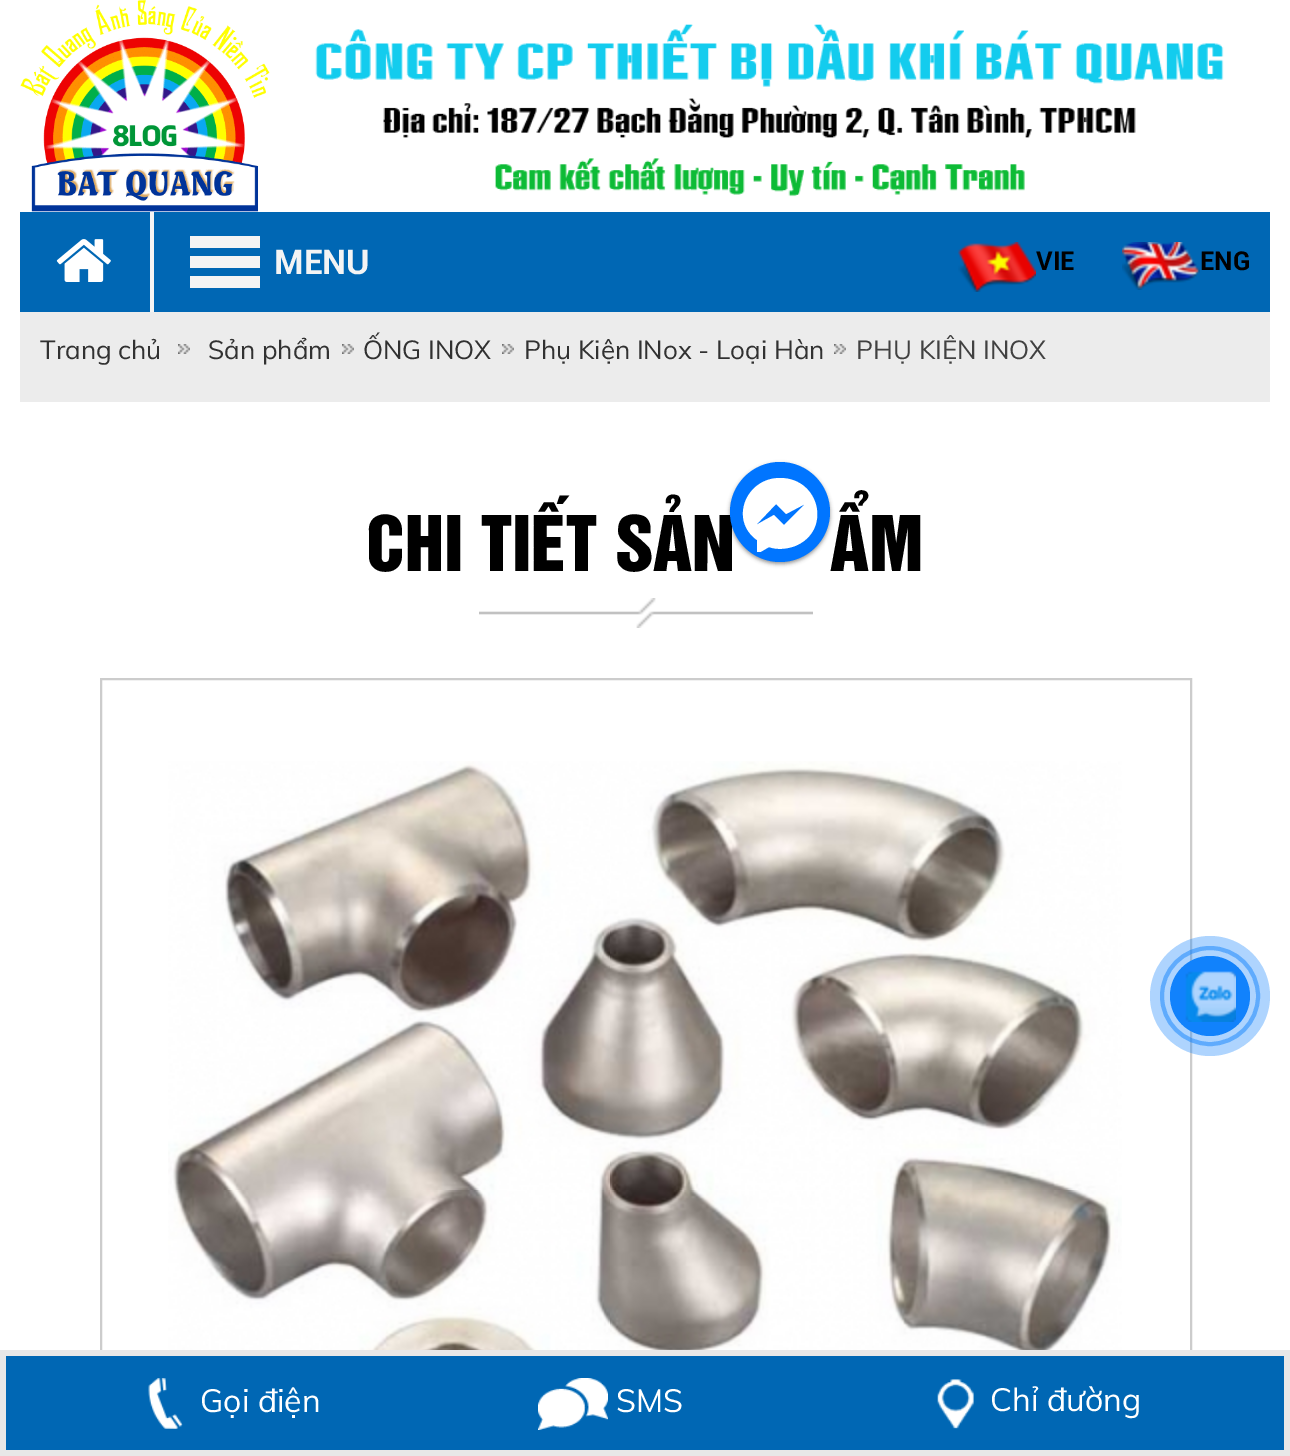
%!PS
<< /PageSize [1290 1456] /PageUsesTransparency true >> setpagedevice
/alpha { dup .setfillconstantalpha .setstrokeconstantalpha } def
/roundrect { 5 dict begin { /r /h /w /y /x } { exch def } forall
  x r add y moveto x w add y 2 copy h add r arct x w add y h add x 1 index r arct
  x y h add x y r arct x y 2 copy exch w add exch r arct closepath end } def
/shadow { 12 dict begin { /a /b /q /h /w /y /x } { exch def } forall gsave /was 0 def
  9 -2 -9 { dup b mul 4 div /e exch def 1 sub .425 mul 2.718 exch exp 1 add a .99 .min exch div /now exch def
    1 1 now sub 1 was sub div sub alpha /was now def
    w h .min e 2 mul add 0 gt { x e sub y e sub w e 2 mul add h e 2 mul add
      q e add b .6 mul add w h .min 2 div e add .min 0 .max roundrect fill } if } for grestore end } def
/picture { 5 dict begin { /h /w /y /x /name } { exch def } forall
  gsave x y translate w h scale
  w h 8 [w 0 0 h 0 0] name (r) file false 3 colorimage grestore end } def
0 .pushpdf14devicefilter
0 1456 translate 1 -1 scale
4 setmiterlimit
1 setgray
0 0 1290 1456 rectfill
(img1.rgb) 20 0 250 212 picture
(img2.rgb) 315 24 909 173 picture
0 0.404 0.706 setrgbcolor
20 212 1250 100 rectfill
(img3.rgb) 56 239 55 43 picture
0.957 setgray
150 212 4 100 rectfill
190 236 70 12 rectfill
190 256 70 12 rectfill
/Roboto-Bold [34 0 0 -34 0 0] selectfont
274 274 moveto (MENU) show
190 276 70 12 rectfill
(img4.rgb) 958 242 78 50 picture
/Roboto-Bold [26 0 0 -26 0 0] selectfont
0 setgray
1036 270 moveto (VIE) show
(img5.rgb) 1122 242 78 48 picture
1200 270 moveto (ENG) show
0.925 setgray
20 312 1250 90 rectfill
/Muli-Regular [26 0 0 -26 0 0] selectfont
0.192 setgray
40 359 moveto (Trang chủ) show
(img6.rgb) 178 344 12 10 picture
208 359 moveto (Sản phẩm) show
(img6.rgb) 342 344 12 10 picture
363 359 moveto (ỐNG INOX) show
(img6.rgb) 502 344 12 10 picture
524 359 moveto (Phụ Kiện INox - Loại Hàn) show
(img6.rgb) 834 344 12 10 picture
0.255 setgray
856 359 moveto (PHỤ KIỆN INOX) show
0 setgray
730 464 100 100 50 2 0.4 shadow
/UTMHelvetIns-Regular [70 0 0 -70 0 0] selectfont
366 571 moveto (CHI TIẾT SẢN) show
0 0.459 1 setrgbcolor
newpath 780 512 50 0 360 arc closepath fill
gsave
742 478 76 74 rectclip
1 setgray
newpath 780 478 moveto 746 478 729 520 757 540 curveto 757 554 lineto 769 547 lineto 777 550 787 549 795 546 curveto 832 531 820 478 780 478 curveto closepath 784 525 moveto 774 515 lineto 756 525 lineto 776 504 lineto 786 514 lineto 805 504 lineto closepath fill
grestore
0 setgray
830 571 moveto (ẨM) show
(img7.rgb) 479 598 334 30 picture
0.8 setgray
2 setlinewidth
101 679 1090 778 rectstroke
(img8.rgb) 168 761 954 589 picture
0 0.404 0.706 setrgbcolor
6 1356 1278 94 rectfill
0.91 setgray
0 1350 1290 6 rectfill
1284 1350 6 106 rectfill
0 1450 1290 6 rectfill
0 1350 6 106 rectfill
(img9.rgb) 148 1378 35 51 picture
/Muli-Regular [32 0 0 -32 0 0] selectfont
1 setgray
200 1412 moveto (Gọi điện) show
(img10.rgb) 538 1378 70 52 picture
616 1412 moveto (SMS) show
(img11.rgb) 937 1379 37 50 picture
990 1411 moveto (Chỉ đường) show
0.067 0.51 0.988 setrgbcolor
newpath 1210 996 40 0 360 arc closepath fill
(img12.rgb) 1185 971 51 51 picture
0.5 alpha
4 setlinewidth
newpath 1210 996 48 0 360 arc closepath stroke
0.34 alpha
newpath 1210 996 60 0 360 arc closepath fill
.poppdf14devicefilter showpage
